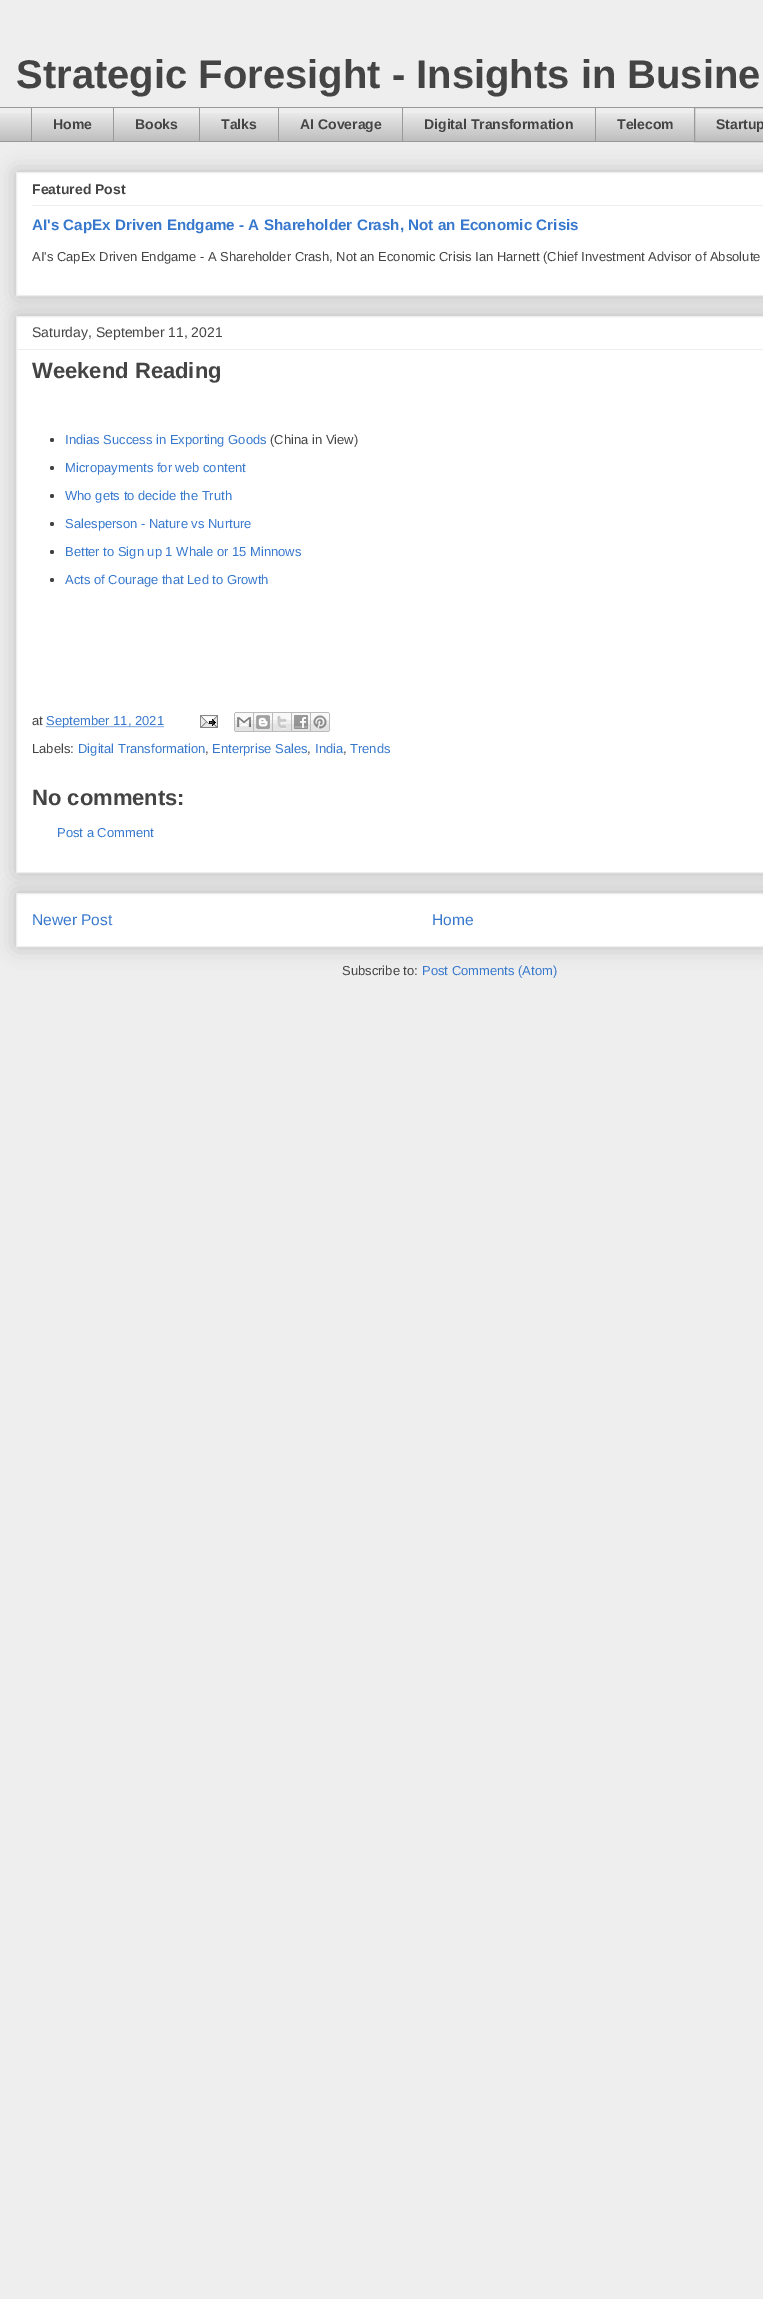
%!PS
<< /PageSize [763 2299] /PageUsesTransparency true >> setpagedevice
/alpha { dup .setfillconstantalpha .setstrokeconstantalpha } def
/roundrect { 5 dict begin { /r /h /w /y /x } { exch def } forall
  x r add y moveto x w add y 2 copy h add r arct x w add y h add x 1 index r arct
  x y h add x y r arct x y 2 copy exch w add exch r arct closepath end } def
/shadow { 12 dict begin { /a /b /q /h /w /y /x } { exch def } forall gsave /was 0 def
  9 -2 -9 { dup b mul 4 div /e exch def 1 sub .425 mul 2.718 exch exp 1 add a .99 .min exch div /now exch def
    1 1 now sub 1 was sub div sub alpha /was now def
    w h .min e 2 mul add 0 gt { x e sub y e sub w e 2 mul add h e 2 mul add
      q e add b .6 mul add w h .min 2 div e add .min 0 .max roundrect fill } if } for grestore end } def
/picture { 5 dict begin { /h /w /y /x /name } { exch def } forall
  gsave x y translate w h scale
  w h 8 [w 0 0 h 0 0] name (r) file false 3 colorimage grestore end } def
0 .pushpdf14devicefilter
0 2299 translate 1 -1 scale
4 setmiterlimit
0.933 setgray
0 0 763 2299 rectfill
/LiberationSans-Bold [40 0 0 -40 0 0] selectfont
0.267 setgray
16 88 moveto (Strategic Foresight - Insights in Busine) show
(img1.rgb) 0 113 763 28 picture
0.6 setgray
0 107 694 1 rectfill
31 107 1 35 rectfill
/LiberationSans-Bold [14 0 0 -14 0 0] selectfont
0.267 setgray
53 129 moveto (Home) show
0.6 setgray
113 107 1 35 rectfill
0.267 setgray
135 129 moveto (Books) show
0.6 setgray
199 107 1 35 rectfill
0.267 setgray
221 129 moveto (Talks) show
0.6 setgray
278 107 1 35 rectfill
0.267 setgray
300 129 moveto (AI Coverage) show
0.6 setgray
402 107 1 35 rectfill
0.267 setgray
424 129 moveto (Digital Transformation) show
0.6 setgray
595 107 1 35 rectfill
0.267 setgray
617 129 moveto (Telecom) show
0.6 setgray
694.5 107.5 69 34 rectstroke
0.267 setgray
716 129 moveto (Startup) show
0.6 setgray
0 141 694 1 rectfill
0 setgray
16 172 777 124 0 10 0.2 shadow
1 setgray
newpath 16.5 172.5 moveto 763.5 172.5 lineto 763.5 295.5 lineto 16.5 295.5 lineto closepath gsave fill grestore
0.933 setgray
stroke
0.267 setgray
32 194 moveto (Featured Post) show
0.933 setgray
32 205 731 1 rectfill
/LiberationSans-Bold [15.2 0 0 -15.2 0 0] selectfont
0.216 0.471 0.804 setrgbcolor
32 230 moveto (AI's CapEx Driven Endgame - A Shareholder Crash, Not an Economic Crisis) show
/LiberationSans-Regular [13 0 0 -13 0 0] selectfont
0.267 setgray
32 261 moveto (AI's CapEx Driven Endgame - A Shareholder Crash, Not an Economic Crisis Ian Harnett \(Chief Investment Advisor of Absolute) show
0 setgray
16 893 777 54 0 10 0.2 shadow
1 setgray
newpath 16.5 893.5 moveto 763.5 893.5 lineto 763.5 946.5 lineto 16.5 946.5 lineto closepath gsave fill grestore
0.933 setgray
stroke
0 setgray
16 316 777 557 0 10 0.2 shadow
1 setgray
newpath 16.5 316.5 moveto 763.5 316.5 lineto 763.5 872.5 lineto 16.5 872.5 lineto closepath gsave fill grestore
0.933 setgray
stroke
/LiberationSans-Regular [14 0 0 -14 0 0] selectfont
0.267 setgray
32 337 moveto (Saturday, September 11, 2021) show
0.933 setgray
17 349 746 1 rectfill
/LiberationSans-Bold [22 0 0 -22 0 0] selectfont
0.267 setgray
32 378 moveto (Weekend Reading) show
newpath 52 440 2 0 360 arc closepath fill
/LiberationSans-Regular [13 0 0 -13 0 0] selectfont
0.216 0.471 0.804 setrgbcolor
65 444 moveto (Indias Success in Exporting Goods) show
0.267 setgray
270 444 moveto (\(China in View\)) show
newpath 52 468 2 0 360 arc closepath fill
0.216 0.471 0.804 setrgbcolor
65 472 moveto (Micropayments for web content) show
0.267 setgray
newpath 52 496 2 0 360 arc closepath fill
0.216 0.471 0.804 setrgbcolor
65 500 moveto (Who gets to decide the Truth) show
0.267 setgray
newpath 52 524 2 0 360 arc closepath fill
0.216 0.471 0.804 setrgbcolor
65 528 moveto (Salesperson - Nature vs Nurture) show
0.267 setgray
newpath 52 552 2 0 360 arc closepath fill
0.216 0.471 0.804 setrgbcolor
65 556 moveto (Better to Sign up 1 Whale or 15 Minnows) show
0.267 setgray
newpath 52 580 2 0 360 arc closepath fill
0.216 0.471 0.804 setrgbcolor
65 584 moveto (Acts of Courage that Led to Growth) show
0.267 setgray
32 725 moveto (at) show
0.216 0.471 0.804 setrgbcolor
[1 1] 0 setdash
newpath 46.5 726.5 moveto 164.5 726.5 lineto stroke
46 725 moveto (September 11, 2021) show
(img2.rgb) 200 715 18 13 picture
(img3.rgb) 234 712 20 20 picture
(img4.rgb) 254 712 19 20 picture
(img5.rgb) 273 712 19 20 picture
(img6.rgb) 292 712 19 20 picture
(img7.rgb) 311 712 19 20 picture
0.267 setgray
32 753 moveto (Labels:) show
0.216 0.471 0.804 setrgbcolor
78 753 moveto (Digital Transformation) show
0.267 setgray
205 753 moveto (,) show
0.216 0.471 0.804 setrgbcolor
212 753 moveto (Enterprise Sales) show
0.267 setgray
307 753 moveto (,) show
0.216 0.471 0.804 setrgbcolor
315 753 moveto (India) show
0.267 setgray
343 753 moveto (,) show
0.216 0.471 0.804 setrgbcolor
350 753 moveto (Trends) show
/LiberationSans-Bold [22 0 0 -22 0 0] selectfont
0.267 setgray
32 805 moveto (No comments:) show
/LiberationSans-Regular [13 0 0 -13 0 0] selectfont
0.216 0.471 0.804 setrgbcolor
57 837 moveto (Post a Comment) show
/LiberationSans-Regular [15.5 0 0 -15.5 0 0] selectfont
32 925 moveto (Newer Post) show
432 925 moveto (Home) show
/LiberationSans-Regular [13 0 0 -13 0 0] selectfont
0.267 setgray
342 975 moveto (Subscribe to:) show
0.216 0.471 0.804 setrgbcolor
422 975 moveto (Post Comments \(Atom\)) show
.poppdf14devicefilter showpage
